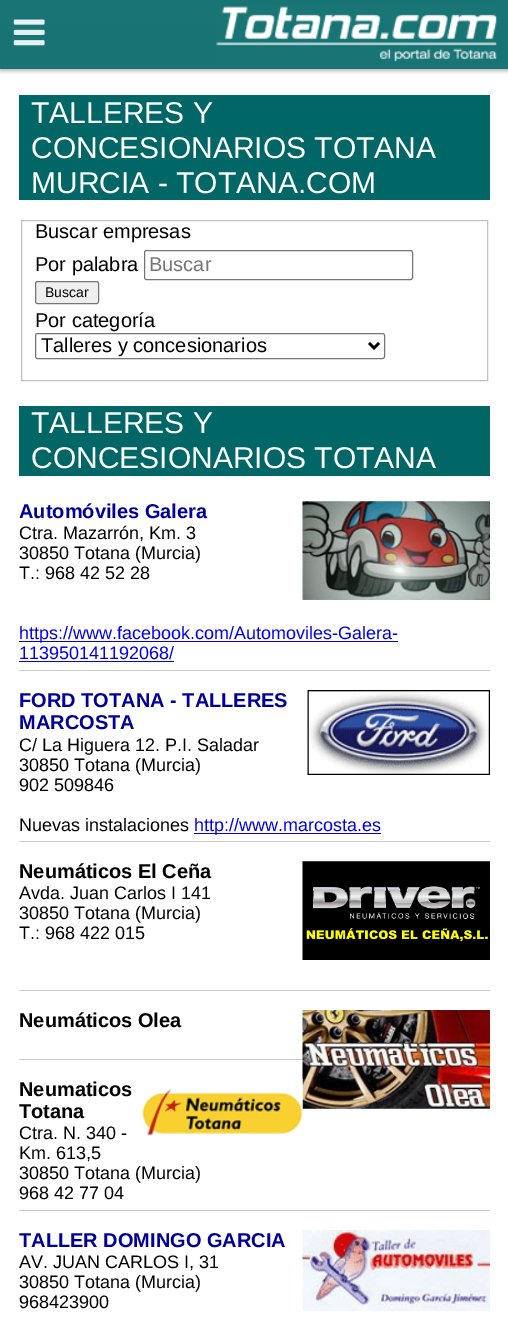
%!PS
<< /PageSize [508 1320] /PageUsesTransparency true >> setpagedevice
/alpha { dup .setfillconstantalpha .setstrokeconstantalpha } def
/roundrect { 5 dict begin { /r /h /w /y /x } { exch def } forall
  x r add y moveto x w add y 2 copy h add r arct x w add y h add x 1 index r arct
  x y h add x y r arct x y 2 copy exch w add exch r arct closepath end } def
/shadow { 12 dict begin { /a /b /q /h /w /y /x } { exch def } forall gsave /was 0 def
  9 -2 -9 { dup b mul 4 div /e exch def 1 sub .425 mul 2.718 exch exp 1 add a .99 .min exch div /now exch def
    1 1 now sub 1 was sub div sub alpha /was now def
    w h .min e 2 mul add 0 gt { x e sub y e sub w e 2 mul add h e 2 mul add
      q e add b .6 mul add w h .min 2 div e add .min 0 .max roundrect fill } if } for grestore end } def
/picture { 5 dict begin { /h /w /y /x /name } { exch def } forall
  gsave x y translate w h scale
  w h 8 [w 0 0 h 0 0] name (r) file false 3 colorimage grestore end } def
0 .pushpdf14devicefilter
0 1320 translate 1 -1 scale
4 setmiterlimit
0.976 setgray
0 0 508 1320 rectfill
1 setgray
0 0 508 23 rectfill
0 63 508 1257 rectfill
gsave
newpath 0 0 moveto 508 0 lineto 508 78 lineto 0 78 lineto closepath 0 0 moveto 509 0 lineto 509 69 lineto 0 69 lineto closepath eoclip newpath
0.702 setgray
0 3 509 68 0 2 1 shadow
grestore
0.9 alpha
0 0.4 0.4 setrgbcolor
0 0 508 69 rectfill
1 alpha
(img1.rgb) 216 6 281 56 picture
(img2.rgb) 13 19 32 27 picture
19 95 471 105 rectfill
/LiberationSans-Regular [30 0 0 -30 0 0] selectfont
1 setgray
31 123 moveto (TALLERES Y) show
31 158 moveto (CONCESIONARIOS TOTANA) show
31 193 moveto (MURCIA - TOTANA.COM) show
0.753 setgray
21.5 220.5 466 160 rectstroke
/LiberationSans-Regular [20 0 0 -20 0 0] selectfont
0 setgray
35 238 moveto (Buscar empresas) show
35 271 moveto (Por palabra) show
0.463 setgray
144.5 250.5 268 29 2 roundrect stroke
0.459 setgray
149 271 moveto (Buscar) show
0.937 setgray
35.5 281.5 63 22 2 roundrect gsave fill grestore
0.463 setgray
stroke
/LiberationSans-Regular [14 0 0 -14 0 0] selectfont
0 setgray
45 297 moveto (Buscar) show
/LiberationSans-Regular [20 0 0 -20 0 0] selectfont
35 327 moveto (Por categoría) show
0.463 setgray
35.5 333.5 349 25 2 roundrect stroke
0 setgray
2.5 setlinewidth
newpath 369 343 moveto 374 348 lineto 379 343 lineto stroke
41 352 moveto (Talleres y concesionarios) show
0 0.4 0.4 setrgbcolor
19 406 471 70 rectfill
/LiberationSans-Regular [30 0 0 -30 0 0] selectfont
1 setgray
31 433 moveto (TALLERES Y) show
31 468 moveto (CONCESIONARIOS TOTANA) show
/LiberationSans-Bold [20 0 0 -20 0 0] selectfont
0 0 0.6 setrgbcolor
19 518 moveto (Automóviles Galera) show
(img3.rgb) 302 501 188 99 picture
0.8 setgray
19 670 471 1 rectfill
/LiberationSans-Regular [18 0 0 -18 0 0] selectfont
0 setgray
19 539 moveto (Ctra. Mazarrón, Km. 3) show
19 559 moveto (30850 Totana \(Murcia\)) show
19 579 moveto (T.: 968 42 52 28) show
0 0 0.933 setrgbcolor
19 641 379 1 rectfill
19 639 moveto (https://www.facebook.com/Automoviles-Galera-) show
19 659 moveto (113950141192068/) show
19 661 155 1 rectfill
/LiberationSans-Bold [20 0 0 -20 0 0] selectfont
0 0 0.6 setrgbcolor
19 707 moveto (FORD TOTANA - TALLERES) show
(img4.rgb) 307 690 183 85 picture
19 729 moveto (MARCOSTA) show
0.8 setgray
19 841 471 1 rectfill
/LiberationSans-Regular [18 0 0 -18 0 0] selectfont
0 setgray
19 751 moveto (C/ La Higuera 12. P.I. Saladar) show
19 771 moveto (30850 Totana \(Murcia\)) show
19 791 moveto (902 509846) show
19 831 moveto (Nuevas instalaciones) show
0 0 0.933 setrgbcolor
194 833 187 1 rectfill
194 831 moveto (http://www.marcosta.es) show
/LiberationSans-Bold [20 0 0 -20 0 0] selectfont
0 setgray
19 878 moveto (Neumáticos El Ceña) show
(img5.rgb) 302 861 188 99 picture
0.8 setgray
19 990 471 1 rectfill
/LiberationSans-Regular [18 0 0 -18 0 0] selectfont
0 setgray
19 899 moveto (Avda. Juan Carlos I 141) show
19 919 moveto (30850 Totana \(Murcia\)) show
19 939 moveto (T.: 968 422 015) show
/LiberationSans-Bold [20 0 0 -20 0 0] selectfont
19 1027 moveto (Neumáticos Olea) show
0.8 setgray
19 1059 284 1 rectfill
(img6.rgb) 302 1010 188 99 picture
0 setgray
19 1096 moveto (Neumaticos) show
(img7.rgb) 142 1078 161 58 picture
19 1118 moveto (Totana) show
0.8 setgray
19 1210 471 1 rectfill
/LiberationSans-Regular [18 0 0 -18 0 0] selectfont
0 setgray
19 1139 moveto (Ctra. N. 340 -) show
19 1159 moveto (Km. 613,5) show
19 1179 moveto (30850 Totana \(Murcia\)) show
19 1199 moveto (968 42 77 04) show
/LiberationSans-Bold [20 0 0 -20 0 0] selectfont
0 0 0.6 setrgbcolor
19 1247 moveto (TALLER DOMINGO GARCIA) show
(img8.rgb) 302 1230 188 82 picture
/LiberationSans-Regular [18 0 0 -18 0 0] selectfont
0 setgray
19 1268 moveto (AV. JUAN CARLOS I, 31) show
19 1288 moveto (30850 Totana \(Murcia\)) show
19 1308 moveto (968423900) show
.poppdf14devicefilter showpage
